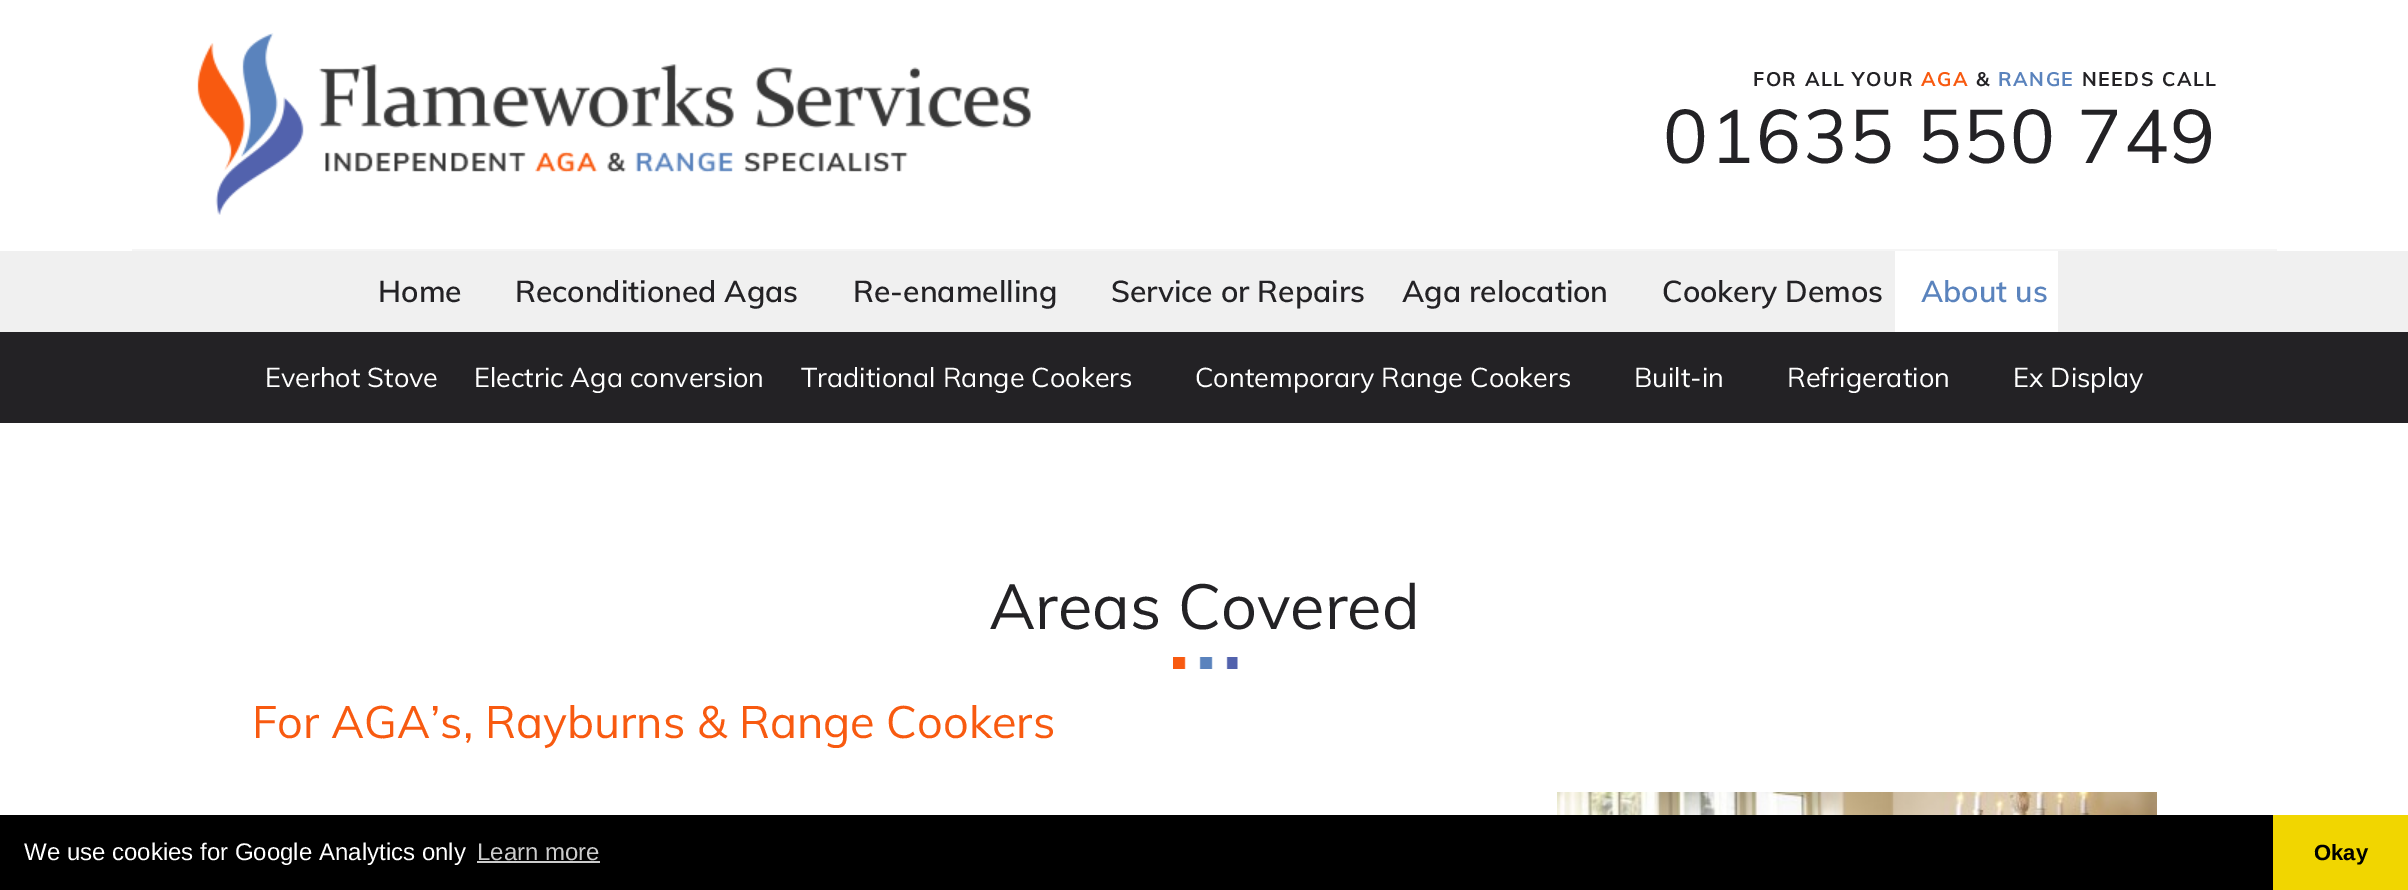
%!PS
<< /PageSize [2408 890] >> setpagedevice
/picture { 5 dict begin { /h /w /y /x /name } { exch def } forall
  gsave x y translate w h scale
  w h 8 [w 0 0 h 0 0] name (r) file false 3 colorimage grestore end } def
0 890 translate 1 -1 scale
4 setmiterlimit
1 setgray
0 0 2408 890 rectfill
0.961 setgray
132 249 2145 2 rectfill
(img1.rgb) 197 33 834 182 picture
/Muli-Bold [19.5 0 0 -19.5 0 0] selectfont
0.137 0.133 0.145 setrgbcolor
1753 86 moveto 1.5 0 (FOR ALL YOUR) ashow
0.973 0.353 0.063 setrgbcolor
1921 86 moveto 1.5 0 (AGA) ashow
0.137 0.133 0.145 setrgbcolor
1976 86 moveto 1.5 0 (&) ashow
0.353 0.514 0.741 setrgbcolor
1998 86 moveto 1.5 0 (RANGE) ashow
0.137 0.133 0.145 setrgbcolor
2082 86 moveto 1.5 0 (NEEDS CALL) ashow
/Muli-Regular [75 0 0 -75 0 0] selectfont
1663 163 moveto 1.5 0 (01635 550 749) ashow
0.941 setgray
0 251 2408 81 rectfill
/Muli-SemiBold [30 0 0 -30 0 0] selectfont
0.137 0.133 0.145 setrgbcolor
378 302 moveto (Home) show
515 302 moveto (Reconditioned Agas) show
853 302 moveto (Re-enamelling) show
1111 302 moveto (Service or Repairs) show
1402 302 moveto (Aga relocation) show
1662 302 moveto (Cookery Demos) show
1 setgray
1895 251 163 81 rectfill
0.353 0.514 0.741 setrgbcolor
1921 302 moveto (About us) show
0.137 0.133 0.145 setrgbcolor
0 332 2408 91 rectfill
/Muli-Regular [27 0 0 -27 0 0] selectfont
1 setgray
265 387 moveto (Everhot Stove) show
474 387 moveto (Electric Aga conversion) show
801 387 moveto (Traditional Range Cookers) show
1195 387 moveto (Contemporary Range Cookers) show
1634 387 moveto (Built-in) show
1787 387 moveto (Refrigeration) show
2013 387 moveto (Ex Display) show
(img2.rgb) 1173 657 65 12 picture
/Muli-Regular [63 0 0 -63 0 0] selectfont
0.137 0.133 0.145 setrgbcolor
989 629 moveto (Areas Covered) show
/Muli-Regular [45 0 0 -45 0 0] selectfont
0.973 0.353 0.063 setrgbcolor
252 738 moveto (For AGA’s, Rayburns & Range Cookers) show
(img3.rgb) 1557 792 600 23 picture
0 setgray
0 815 2273 75 rectfill
/LiberationSans-Regular [24 0 0 -24 0 0] selectfont
1 setgray
24 860 moveto (We use cookies for Google Analytics only) show
0.8 setgray
477 860 moveto (Learn more) show
477 861 123 2 rectfill
0.945 0.839 0 setrgbcolor
2273 815 135 75 rectfill
/LiberationSans-Bold [22 0 0 -22 0 0] selectfont
0 setgray
2314 860 moveto (Okay) show
showpage
